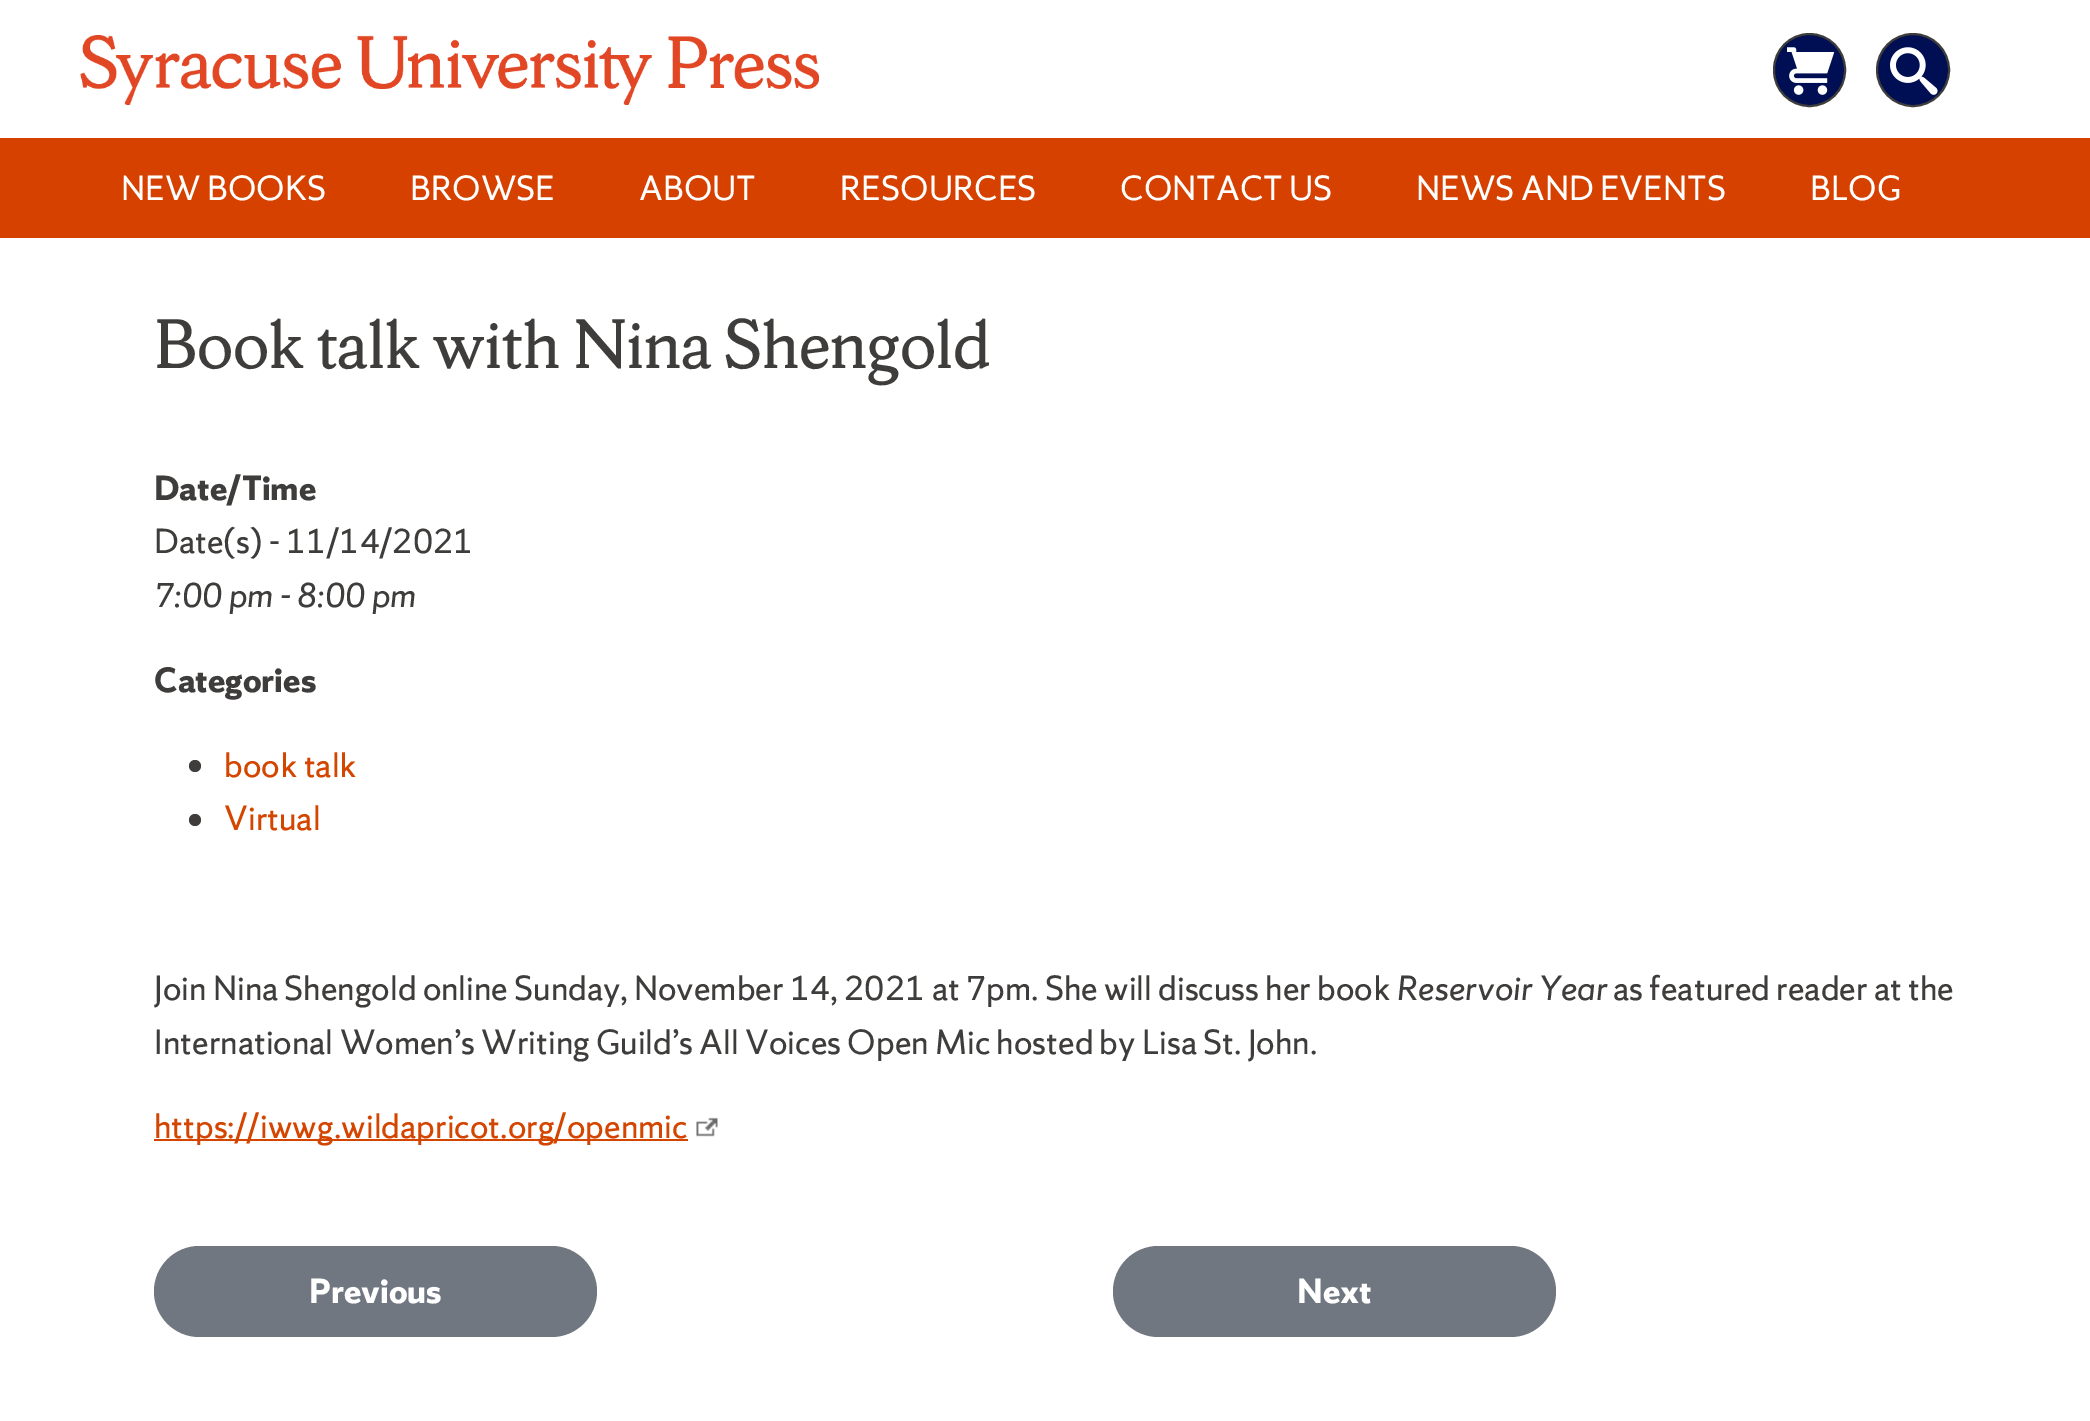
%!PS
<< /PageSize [2090 1421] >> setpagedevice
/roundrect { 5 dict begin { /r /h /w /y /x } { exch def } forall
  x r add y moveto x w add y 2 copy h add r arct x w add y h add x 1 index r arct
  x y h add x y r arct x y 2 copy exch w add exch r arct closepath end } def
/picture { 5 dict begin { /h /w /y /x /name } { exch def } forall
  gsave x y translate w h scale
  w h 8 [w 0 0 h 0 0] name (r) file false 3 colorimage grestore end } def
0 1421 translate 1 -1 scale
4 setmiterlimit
1 setgray
0 0 2090 1421 rectfill
(img1.rgb) 80 35 739 70 picture
0 0.055 0.329 setrgbcolor
1774 34 71 72 35.5 roundrect gsave fill grestore
0.243 0.239 0.235 setrgbcolor
2 setlinewidth
stroke
(img2.rgb) 1787 47 47 48 picture
0 0.055 0.329 setrgbcolor
newpath 1913 70 36 0 360 arc closepath gsave fill grestore
0.243 0.239 0.235 setrgbcolor
stroke
(img3.rgb) 1890 47 48 48 picture
0.843 0.255 0 setrgbcolor
0 138 2090 100 rectfill
/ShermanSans-Regular [30.8 0 0 -30.8 0 0] selectfont
1 setgray
121 200 moveto (NEW BOOKS) show
410 200 moveto (BROWSE) show
639 200 moveto (ABOUT) show
840 200 moveto (RESOURCES) show
1120 200 moveto (CONTACT US) show
1416 200 moveto (NEWS AND EVENTS) show
1810 200 moveto (BLOG) show
/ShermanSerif-Regular [61.6 0 0 -61.6 0 0] selectfont
0.243 0.239 0.235 setrgbcolor
154 368 moveto (Book talk with Nina Shengold) show
/ShermanSans-Bold [30.8 0 0 -30.8 0 0] selectfont
154 500 moveto (Date/Time) show
/ShermanSans-Regular [30.8 0 0 -30.8 0 0] selectfont
154 553 moveto (Date\(s\) - 11/14/2021) show
/ShermanSans-Italic [30.8 0 0 -30.8 0 0] selectfont
154 607 moveto (7:00 pm - 8:00 pm) show
/ShermanSans-Bold [30.8 0 0 -30.8 0 0] selectfont
154 692 moveto (Categories) show
newpath 195 766 6 0 360 arc closepath fill
/ShermanSans-Regular [30.8 0 0 -30.8 0 0] selectfont
0.831 0.271 0 setrgbcolor
224 777 moveto (book talk) show
0.243 0.239 0.235 setrgbcolor
newpath 195 820 6 0 360 arc closepath fill
0.831 0.271 0 setrgbcolor
224 830 moveto (Virtual) show
0.243 0.239 0.235 setrgbcolor
154 1000 moveto (Join Nina Shengold online Sunday, November 14, 2021 at 7pm. She will discuss her book) show
/ShermanSans-Italic [30.8 0 0 -30.8 0 0] selectfont
1397 1000 moveto (Reservoir Year) show
/ShermanSans-Regular [30.8 0 0 -30.8 0 0] selectfont
1613 1000 moveto (as featured reader at the) show
154 1054 moveto (International Women’s Writing Guild’s All Voices Open Mic hosted by Lisa St. John.) show
0.831 0.271 0 setrgbcolor
154 1139 534 2 rectfill
154 1138 moveto (https://iwwg.wildapricot.org/openmic) show
(img4.rgb) 696 1117 22 20 picture
0.439 0.467 0.502 setrgbcolor
154 1246 443 91 45.5 roundrect fill
/ShermanSans-Bold [30.8 0 0 -30.8 0 0] selectfont
1 setgray
309 1303 moveto (Previous) show
0.439 0.467 0.502 setrgbcolor
1113 1246 443 91 45.5 roundrect fill
1 setgray
1297 1303 moveto (Next) show
showpage
